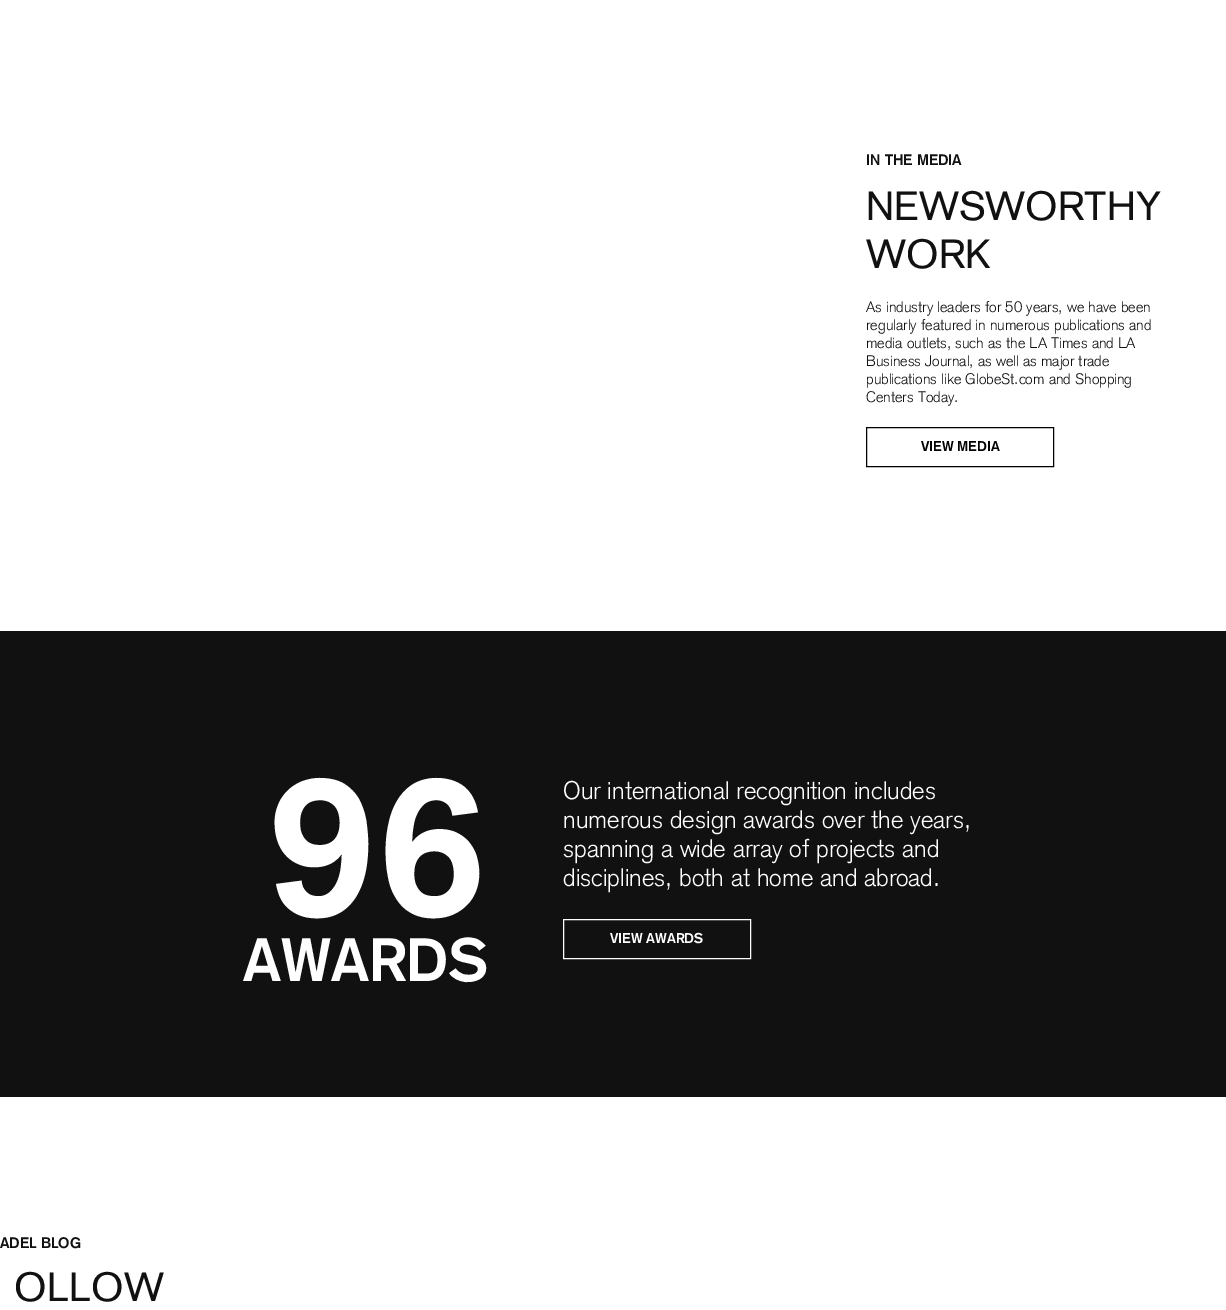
%!PS
<< /PageSize [1226 1310] >> setpagedevice
0 1310 translate 1 -1 scale
4 setmiterlimit
1 setgray
0 0 1226 1310 rectfill
/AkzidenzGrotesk-Bold [15 0 0 -15 0 0] selectfont
0.067 setgray
866 165 moveto (IN THE MEDIA) show
/AkzidenzGrotesk-Regular [40 0 0 -40 0 0] selectfont
866 220 moveto (NEWSWORTHY) show
866 268 moveto (WORK) show
/AkzidenzGrotesk-Light [15 0 0 -15 0 0] selectfont
866 312 moveto (As industry leaders for 50 years, we have been) show
866 330 moveto (regularly featured in numerous publications and) show
866 348 moveto (media outlets, such as the LA Times and LA) show
866 366 moveto (Business Journal, as well as major trade) show
866 384 moveto (publications like GlobeSt.com and Shopping) show
866 402 moveto (Centers Today.) show
0 setgray
866.5 427.5 187 39 rectstroke
/AkzidenzGrotesk-Bold [14 0 0 -14 0 0] selectfont
921 451 moveto (VIEW MEDIA) show
0.067 setgray
0 631 1226 466 rectfill
/AkzidenzGrotesk-Bold [200 0 0 -200 0 0] selectfont
1 setgray
266 916 moveto (96) show
/AkzidenzGrotesk-Bold [60 0 0 -60 0 0] selectfont
243 981 moveto (AWARDS) show
/AkzidenzGrotesk-Light [25 0 0 -25 0 0] selectfont
563 799 moveto (Our international recognition includes) show
563 828 moveto (numerous design awards over the years,) show
563 857 moveto (spanning a wide array of projects and) show
563 886 moveto (disciplines, both at home and abroad.) show
563.5 919.5 187 39 rectstroke
/AkzidenzGrotesk-Bold [14 0 0 -14 0 0] selectfont
610 943 moveto (VIEW AWARDS) show
/AkzidenzGrotesk-Bold [15 0 0 -15 0 0] selectfont
0.067 setgray
0 1248 moveto (ADEL BLOG) show
/AkzidenzGrotesk-Regular [40 0 0 -40 0 0] selectfont
14 1301 moveto (OLLOW) show
showpage
